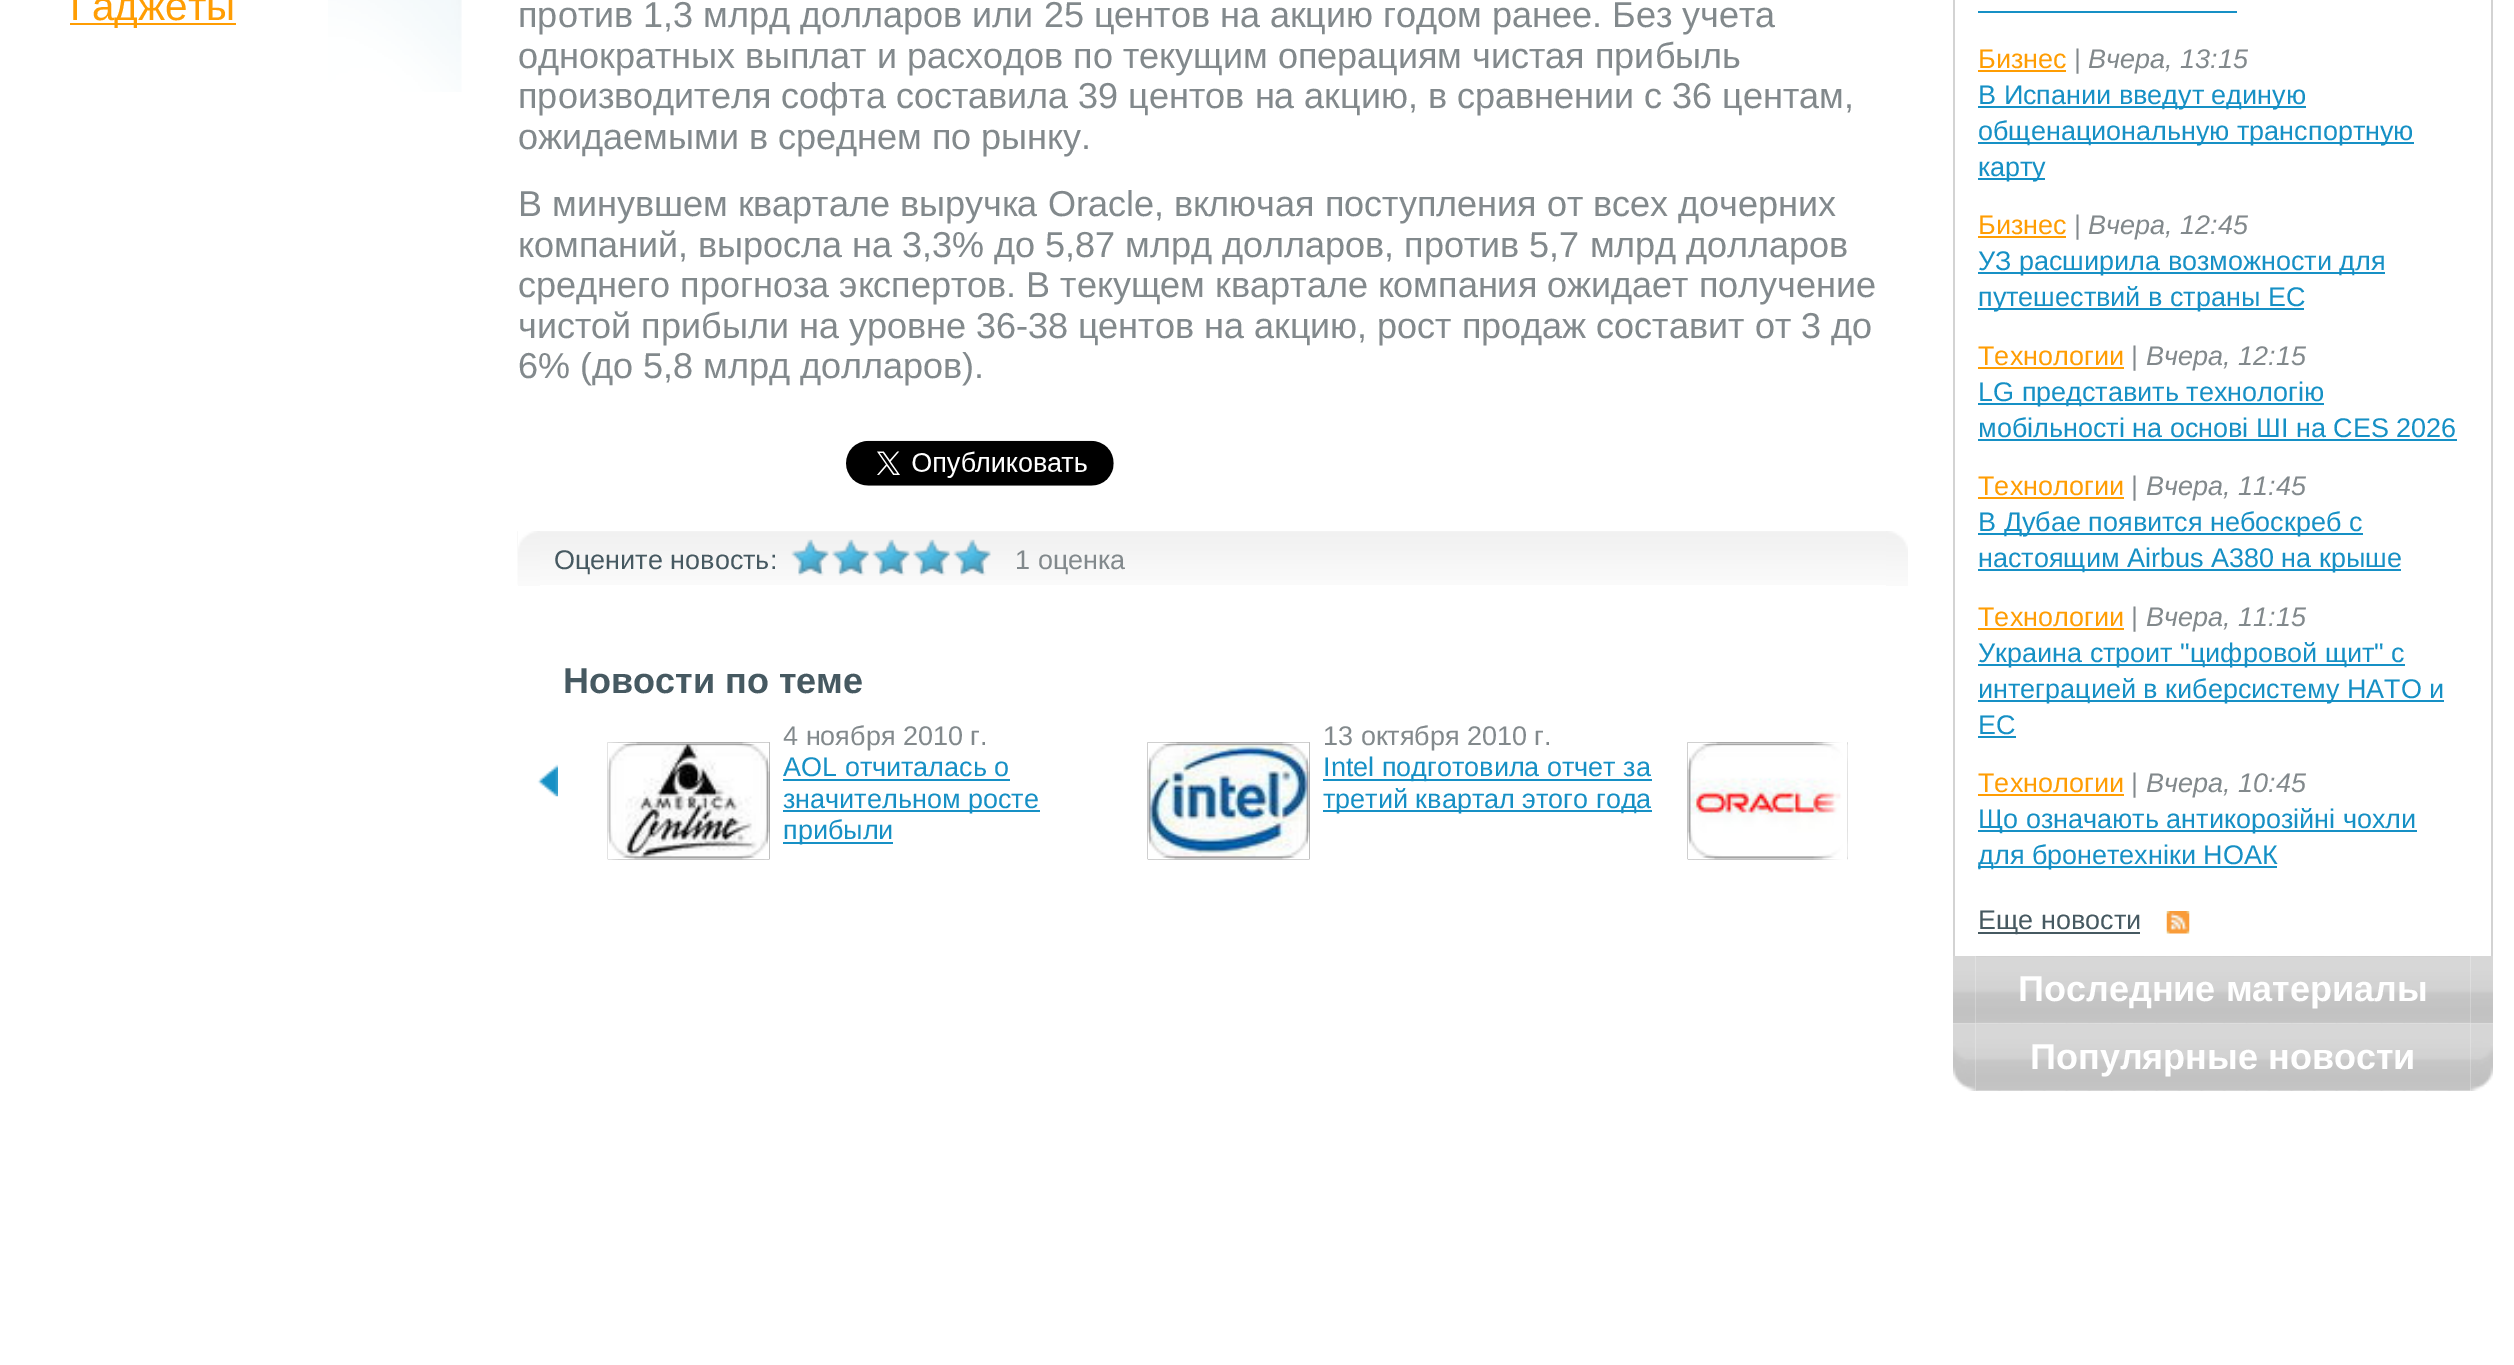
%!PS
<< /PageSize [2514 1365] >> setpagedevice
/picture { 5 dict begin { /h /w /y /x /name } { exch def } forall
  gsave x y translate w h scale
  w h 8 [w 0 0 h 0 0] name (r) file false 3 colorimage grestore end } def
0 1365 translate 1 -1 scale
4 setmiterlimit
1 setgray
0 0 2514 1365 rectfill
(img1.rgb) 328 0 134 92 picture
1 0.616 0.012 setrgbcolor
70 23 166 2 rectfill
/LiberationSans-Regular [40.5 0 0 -40.5 0 0] selectfont
70 20 moveto (Гаджеты) show
/LiberationSans-Regular [36 0 0 -36 0 0] selectfont
0.51 0.537 0.549 setrgbcolor
518 27 moveto (против 1,3 млрд долларов или 25 центов на акцию годом ранее. Без учета) show
518 68 moveto (однократных выплат и расходов по текущим операциям чистая прибыль) show
518 108 moveto (производителя софта составила 39 центов на акцию, в сравнении с 36 центам,) show
518 149 moveto (ожидаемыми в среднем по рынку.) show
518 216 moveto (В минувшем квартале выручка Oracle, включая поступления от всех дочерних) show
518 257 moveto (компаний, выросла на 3,3% до 5,87 млрд долларов, против 5,7 млрд долларов) show
518 297 moveto (среднего прогноза экспертов. В текущем квартале компания ожидает получение) show
518 338 moveto (чистой прибыли на уровне 36-38 центов на акцию, рост продаж составит от 3 до) show
518 378 moveto (6% \(до 5,8 млрд долларов\).) show
(img2.rgb) 846 440 268 46 picture
(img3.rgb) 517 531 1369 54 picture
(img4.rgb) 518 531 22 55 picture
/LiberationSans-Regular [27 0 0 -27 0 0] selectfont
0.275 0.349 0.38 setrgbcolor
554 569 moveto (Оцените новость:) show
(img5.rgb) 791 539 200 37 picture
0.51 0.537 0.549 setrgbcolor
1015 569 moveto (1 оценка) show
(img6.rgb) 1886 531 22 55 picture
/LiberationSans-Bold [36 0 0 -36 0 0] selectfont
0.275 0.349 0.38 setrgbcolor
563 693 moveto (Новости по теме) show
(img7.rgb) 537 764 21 33 picture
(img9.rgb) 607 742 163 118 picture
(img10.rgb) 607 742 163 118 picture
(img8.rgb) 607 742 11 118 picture
/LiberationSans-Regular [27 0 0 -27 0 0] selectfont
0.51 0.537 0.549 setrgbcolor
783 745 moveto (4 ноября 2010 г.) show
0.086 0.565 0.773 setrgbcolor
783 776 moveto (AOL отчиталась о) show
783 779 227 2 rectfill
783 810 257 2 rectfill
783 808 moveto (значительном росте) show
783 842 110 2 rectfill
783 839 moveto (прибыли) show
(img11.rgb) 1147 742 163 118 picture
0.51 0.537 0.549 setrgbcolor
1323 745 moveto (13 октября 2010 г.) show
0.086 0.565 0.773 setrgbcolor
1323 779 329 2 rectfill
1323 776 moveto (Intel подготовила отчет за) show
1323 810 329 2 rectfill
1323 808 moveto (третий квартал этого года) show
(img12.rgb) 1147 742 163 118 picture
(img13.rgb) 1687 742 161 118 picture
(img14.rgb) 1687 742 161 118 picture
(img15.rgb) 1813 742 35 118 picture
0.827 setgray
2491 0 2 956 rectfill
1953 0 2 956 rectfill
0.086 0.565 0.773 setrgbcolor
1978 11 259 2 rectfill
1 0.616 0.012 setrgbcolor
1978 68 moveto (Бизнес) show
1978 70 88 2 rectfill
0.51 0.537 0.549 setrgbcolor
2074 68 moveto (|) show
/LiberationSans-Italic [27 0 0 -27 0 0] selectfont
2088 68 moveto (Вчера, 13:15) show
0.086 0.565 0.773 setrgbcolor
1978 106 328 2 rectfill
/LiberationSans-Regular [27 0 0 -27 0 0] selectfont
1978 104 moveto (В Испании введут единую) show
1978 142 436 2 rectfill
1978 140 moveto (общенациональную транспортную) show
1978 178 67 2 rectfill
1978 176 moveto (карту) show
1 0.616 0.012 setrgbcolor
1978 234 moveto (Бизнес) show
1978 236 88 2 rectfill
0.51 0.537 0.549 setrgbcolor
2074 234 moveto (|) show
/LiberationSans-Italic [27 0 0 -27 0 0] selectfont
2088 234 moveto (Вчера, 12:45) show
0.086 0.565 0.773 setrgbcolor
1978 272 407 2 rectfill
/LiberationSans-Regular [27 0 0 -27 0 0] selectfont
1978 270 moveto (УЗ расширила возможности для) show
1978 308 326 2 rectfill
1978 306 moveto (путешествий в страны ЕС) show
1 0.616 0.012 setrgbcolor
1978 365 moveto (Технологии) show
1978 367 146 2 rectfill
0.51 0.537 0.549 setrgbcolor
2131 365 moveto (|) show
/LiberationSans-Italic [27 0 0 -27 0 0] selectfont
2146 365 moveto (Вчера, 12:15) show
0.086 0.565 0.773 setrgbcolor
1978 403 346 2 rectfill
/LiberationSans-Regular [27 0 0 -27 0 0] selectfont
1978 401 moveto (LG представить технологію) show
1978 437 moveto (мобільності на основі ШІ на CES 2026) show
1978 439 479 2 rectfill
1 0.616 0.012 setrgbcolor
1978 495 moveto (Технологии) show
1978 497 146 2 rectfill
0.51 0.537 0.549 setrgbcolor
2131 495 moveto (|) show
/LiberationSans-Italic [27 0 0 -27 0 0] selectfont
2146 495 moveto (Вчера, 11:45) show
0.086 0.565 0.773 setrgbcolor
1978 533 385 2 rectfill
/LiberationSans-Regular [27 0 0 -27 0 0] selectfont
1978 531 moveto (В Дубае появится небоскреб с) show
1978 569 423 2 rectfill
1978 567 moveto (настоящим Airbus A380 на крыше) show
1 0.616 0.012 setrgbcolor
1978 626 moveto (Технологии) show
1978 628 146 2 rectfill
0.51 0.537 0.549 setrgbcolor
2131 626 moveto (|) show
/LiberationSans-Italic [27 0 0 -27 0 0] selectfont
2146 626 moveto (Вчера, 11:15) show
0.086 0.565 0.773 setrgbcolor
1978 664 427 2 rectfill
/LiberationSans-Regular [27 0 0 -27 0 0] selectfont
1978 662 moveto (Украина строит "цифровой щит" с) show
1978 700 466 2 rectfill
1978 698 moveto (интеграцией в киберсистему НАТО и) show
1978 734 moveto (ЕС) show
1978 736 38 2 rectfill
1 0.616 0.012 setrgbcolor
1978 792 moveto (Технологии) show
1978 794 146 2 rectfill
0.51 0.537 0.549 setrgbcolor
2131 792 moveto (|) show
/LiberationSans-Italic [27 0 0 -27 0 0] selectfont
2146 792 moveto (Вчера, 10:45) show
0.086 0.565 0.773 setrgbcolor
1978 830 439 2 rectfill
/LiberationSans-Regular [27 0 0 -27 0 0] selectfont
1978 828 moveto (Що означають антикорозійні чохли) show
1978 866 299 2 rectfill
1978 864 moveto (для бронетехніки НОАК) show
0.275 0.349 0.38 setrgbcolor
1978 932 162 2 rectfill
1978 929 moveto (Еще новости) show
(img16.rgb) 2166 911 24 23 picture
(img17.rgb) 1953 956 23 68 picture
(img18.rgb) 1975 956 496 68 picture
/LiberationSans-Bold [36 0 0 -36 0 0] selectfont
1 setgray
2018 1001 moveto (Последние материалы) show
(img19.rgb) 2470 956 23 68 picture
(img20.rgb) 1953 1023 23 68 picture
(img21.rgb) 1975 1023 496 68 picture
2030 1069 moveto (Популярные новости) show
(img22.rgb) 2470 1023 23 68 picture
showpage
